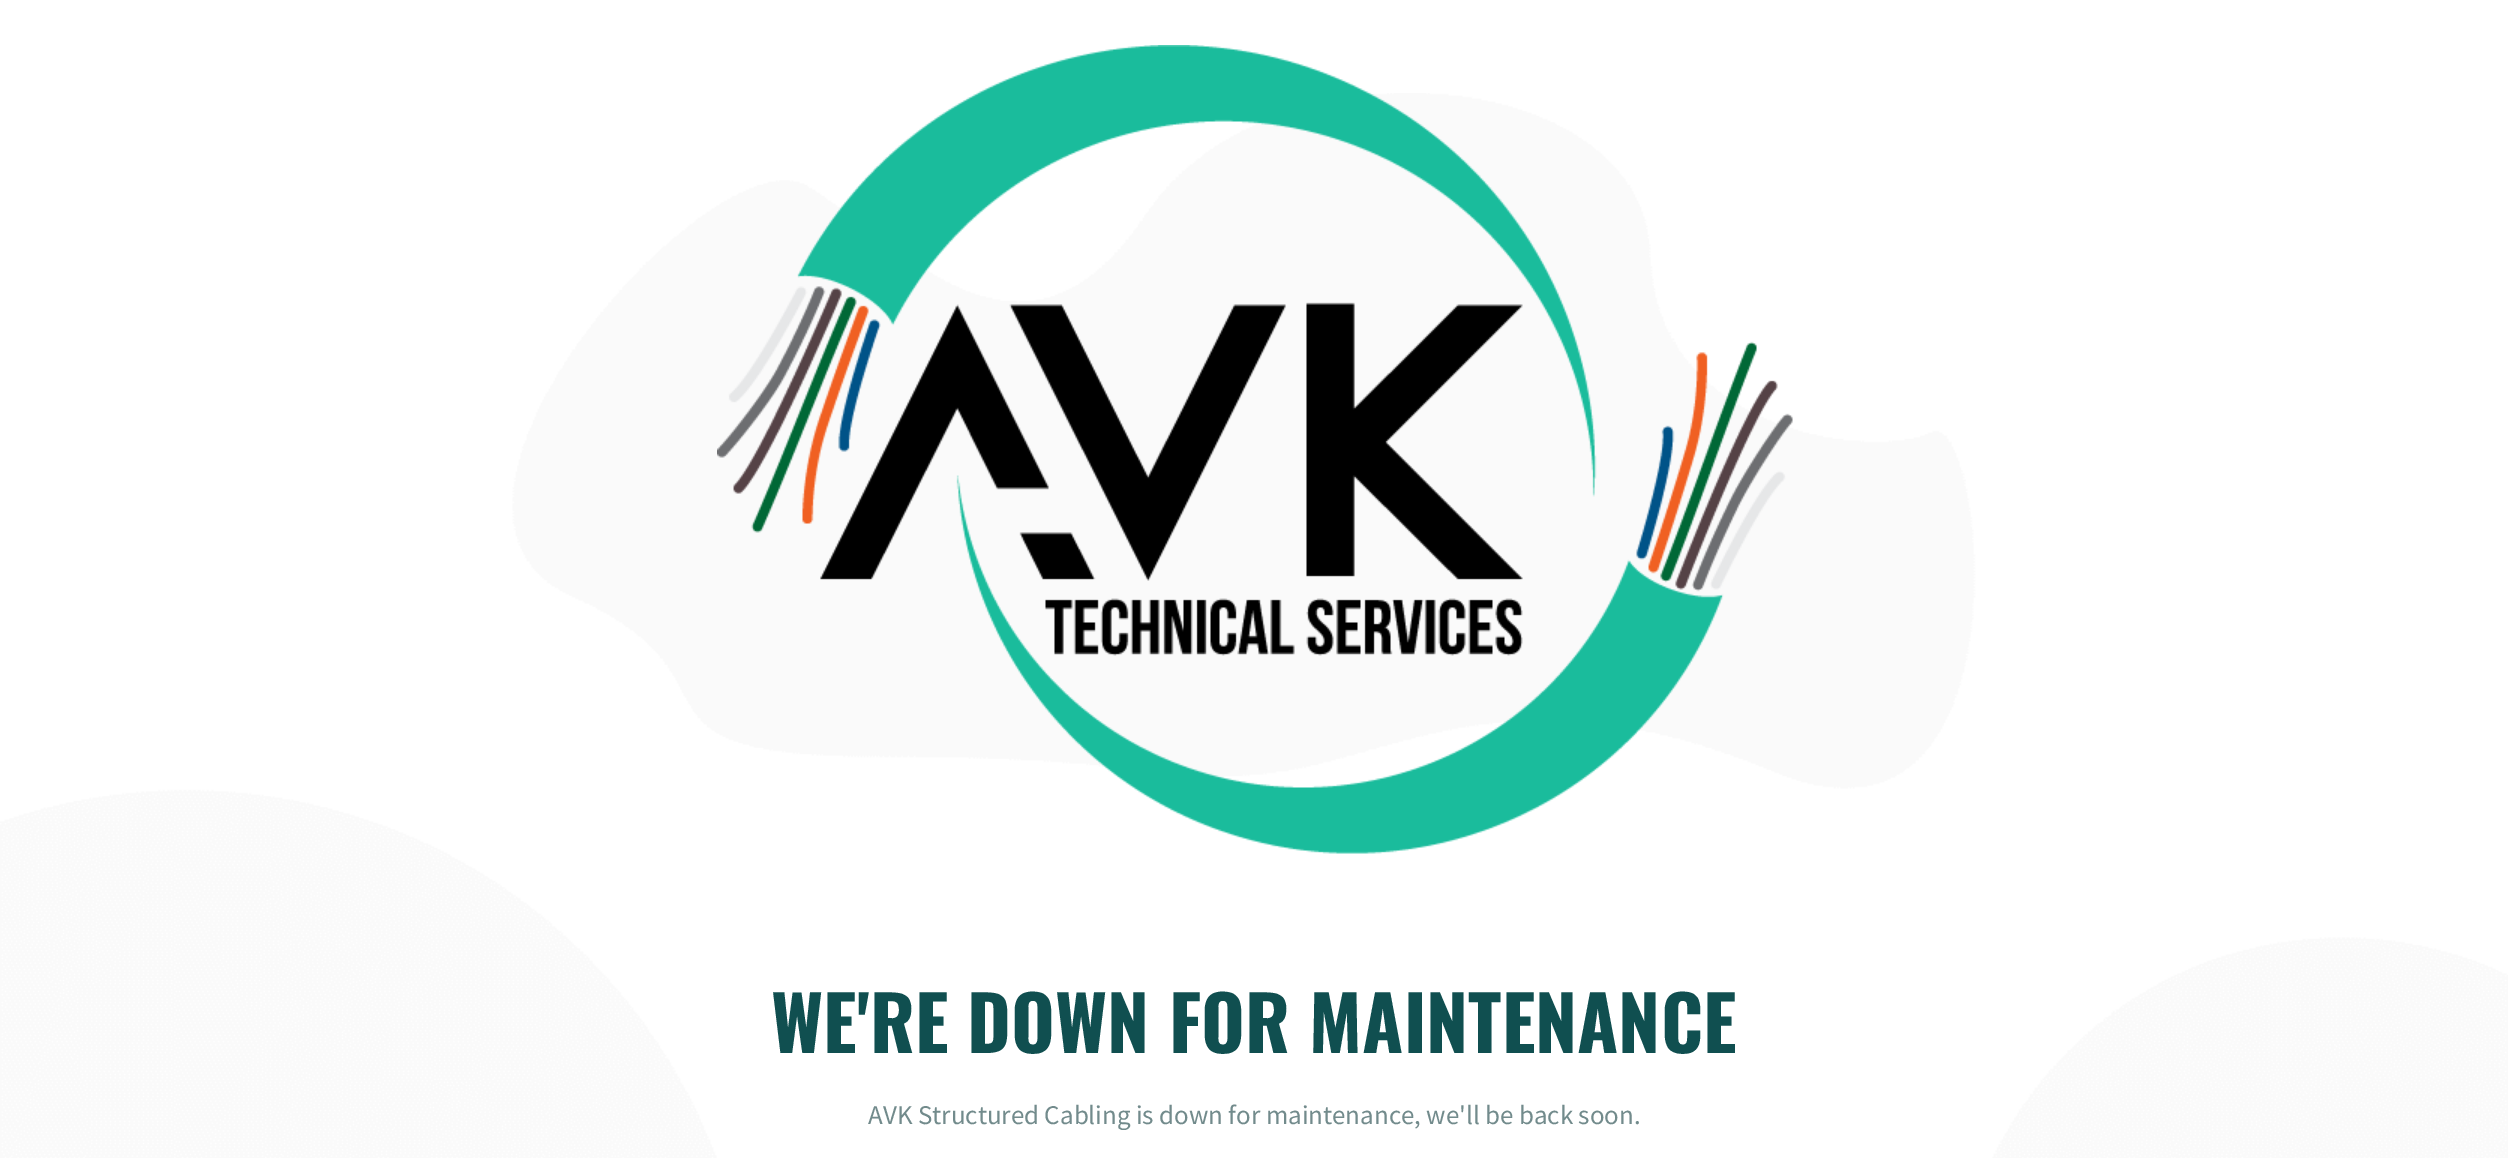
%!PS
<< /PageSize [2508 1158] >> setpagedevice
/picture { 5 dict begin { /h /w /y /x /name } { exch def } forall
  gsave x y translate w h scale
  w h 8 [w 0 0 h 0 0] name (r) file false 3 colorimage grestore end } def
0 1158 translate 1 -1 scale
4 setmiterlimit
1 setgray
0 0 2508 1158 rectfill
(img1.rgb) 0 93 2508 1065 picture
(img2.rgb) 717 45 1076 809 picture
/Oswald-Bold [75 0 0 -75 0 0] selectfont
0.063 0.31 0.314 setrgbcolor
771 1053 moveto (WE'RE DOWN FOR MAINTENANCE) show
/SourceSansPro-Regular [27 0 0 -27 0 0] selectfont
0.447 0.545 0.549 setrgbcolor
868 1124 moveto (AVK Structured Cabling is down for maintenance, we'll be back soon.) show
showpage
